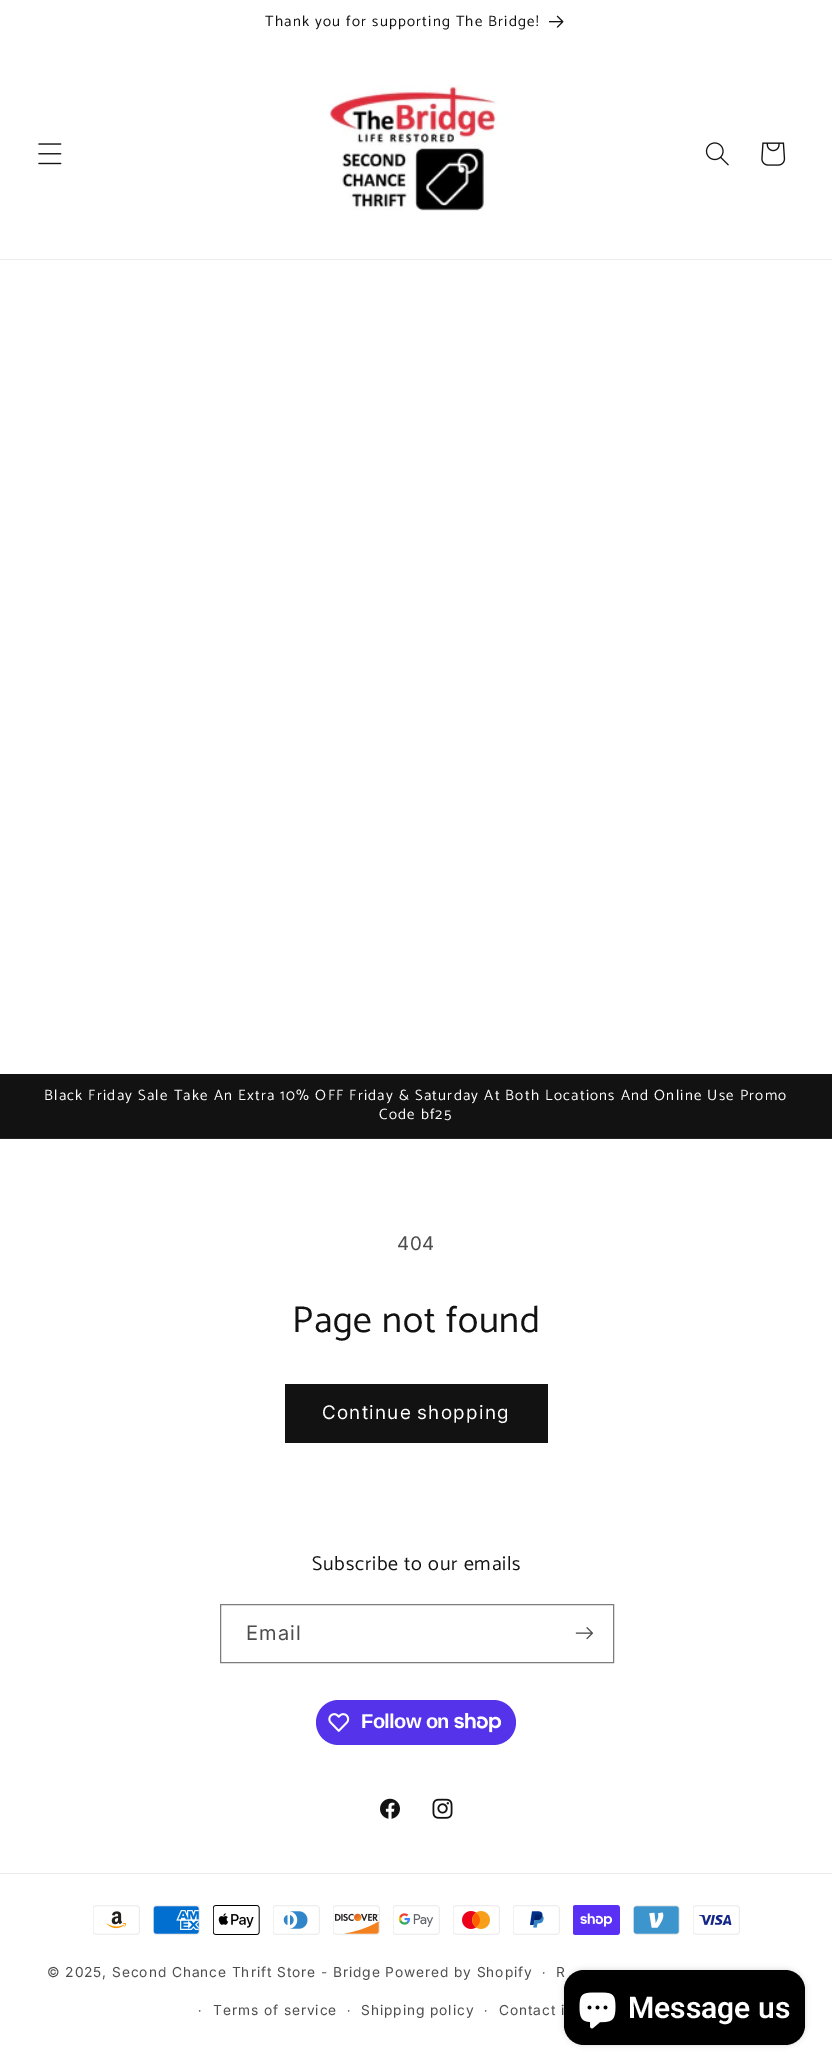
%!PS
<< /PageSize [832 2071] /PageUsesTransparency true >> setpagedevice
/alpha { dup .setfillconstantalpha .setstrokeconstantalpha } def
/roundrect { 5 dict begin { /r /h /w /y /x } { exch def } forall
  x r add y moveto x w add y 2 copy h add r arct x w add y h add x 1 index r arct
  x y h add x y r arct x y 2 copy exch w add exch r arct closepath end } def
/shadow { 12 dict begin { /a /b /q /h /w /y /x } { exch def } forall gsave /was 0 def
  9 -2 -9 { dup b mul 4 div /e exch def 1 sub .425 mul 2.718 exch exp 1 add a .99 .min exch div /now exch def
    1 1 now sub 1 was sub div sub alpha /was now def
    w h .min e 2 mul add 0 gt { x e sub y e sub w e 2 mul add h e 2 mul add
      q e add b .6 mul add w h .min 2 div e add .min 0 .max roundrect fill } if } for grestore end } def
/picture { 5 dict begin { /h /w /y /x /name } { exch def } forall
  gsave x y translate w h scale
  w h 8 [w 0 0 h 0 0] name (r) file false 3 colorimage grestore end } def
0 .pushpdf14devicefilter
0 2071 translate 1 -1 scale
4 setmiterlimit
1 setgray
0 0 832 2071 rectfill
/Catamaran-Regular [15 0 0 -15 0 0] selectfont
0.071 setgray
265 26 moveto 1.25 0 (Thank you for supporting The Bridge!) ashow
(img1.rgb) 549 15 15 13 picture
0.925 setgray
0 259 832 1 rectfill
(img2.rgb) 38 143 24 22 picture
(img3.rgb) 328 85 176 126 picture
(img4.rgb) 705 142 24 24 picture
(img5.rgb) 761 142 25 24 picture
0.071 setgray
0 1074 832 64 rectfill
0.145 setgray
0 1138 832 1 rectfill
1 setgray
44 1100 moveto 1.25 0 (Black Friday Sale Take An Extra 10% OFF Friday & Saturday At Both Locations And Online Use Promo) ashow
379 1119 moveto 1.25 0 (Code bf25) ashow
/Inter-Regular [18.75 0 0 -18.75 0 0] selectfont
0.302 setgray
397 1250 moveto 0.75 0 (404) ashow
/Catamaran-Regular [37.5 0 0 -37.5 0 0] selectfont
0.071 setgray
292 1332 moveto 0.75 0 (Page not found) ashow
285 1384 263 59 rectfill
/Inter-Regular [18.75 0 0 -18.75 0 0] selectfont
1 setgray
322 1419 moveto -1 0 32 1.25 0 (Continue shopping) awidthshow
/Catamaran-Regular [20 0 0 -20 0 0] selectfont
0.071 setgray
312 1570 moveto 0.75 0 (Subscribe to our emails) ashow
0.49 setgray
220.5 1604.5 393 58 rectstroke
/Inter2-Regular [20 0 0 -20 0 0] selectfont
0.302 setgray
246 1640 moveto 1.25 0 (Email) ashow
(img6.rgb) 575 1627 18 13 picture
0.329 0.2 0.922 setrgbcolor
316 1700 200 45 22.5 roundrect fill
(img7.rgb) 328 1713 22 19 picture
/LiberationSans-Bold [20 0 0 -20 0 0] selectfont
1 setgray
361 1728 moveto -0.6 0 (Follow on) ashow
(img8.rgb) 454 1713 47 20 picture
(img9.rgb) 380 1798 20 21 picture
(img10.rgb) 432 1798 21 21 picture
0.925 setgray
0 1873 832 1 rectfill
(img11.rgb) 93 1905 47 30 picture
(img12.rgb) 153 1905 47 30 picture
(img13.rgb) 213 1905 47 30 picture
(img14.rgb) 273 1905 47 30 picture
(img15.rgb) 333 1905 47 30 picture
(img16.rgb) 393 1905 47 30 picture
(img17.rgb) 453 1905 47 30 picture
(img18.rgb) 513 1905 47 30 picture
(img19.rgb) 573 1905 47 30 picture
(img20.rgb) 633 1905 47 30 picture
(img21.rgb) 693 1905 47 30 picture
/Inter-Regular [13.75 0 0 -13.75 0 0] selectfont
0.302 setgray
47 1977 moveto 0.9 0 (© 2025, Second Chance Thrift Store - Bridge) ashow
385 1977 moveto 0.9 0 (Powered by Shopify) ashow
/Inter-Regular [12 0 0 -12 0 0] selectfont
542 1977 moveto 0.9 0 (·) ashow
/Inter-Regular [13.75 0 0 -13.75 0 0] selectfont
556 1977 moveto 0.9 0 (R) ashow
/Inter-Regular [12 0 0 -12 0 0] selectfont
198 2015 moveto 0.9 0 (·) ashow
/Inter-Regular [13.75 0 0 -13.75 0 0] selectfont
213 2015 moveto 0.9 0 (Terms of service) ashow
/Inter-Regular [12 0 0 -12 0 0] selectfont
347 2015 moveto 0.9 0 (·) ashow
/Inter-Regular [13.75 0 0 -13.75 0 0] selectfont
361 2015 moveto 0.9 0 (Shipping policy) ashow
/Inter-Regular [12 0 0 -12 0 0] selectfont
484 2015 moveto 0.9 0 (·) ashow
/Inter-Regular [13.75 0 0 -13.75 0 0] selectfont
499 2015 moveto 0.9 0 (Contact i) ashow
0 setgray
564 1970 241 75 20 3 0.15 shadow
564 1970 241 75 20 roundrect fill
(img22.rgb) 579 1992 37 37 picture
/Roboto-SemiBold [30 0 0 -30 0 0] selectfont
1 setgray
628 2018 moveto (Message us) show
.poppdf14devicefilter showpage
